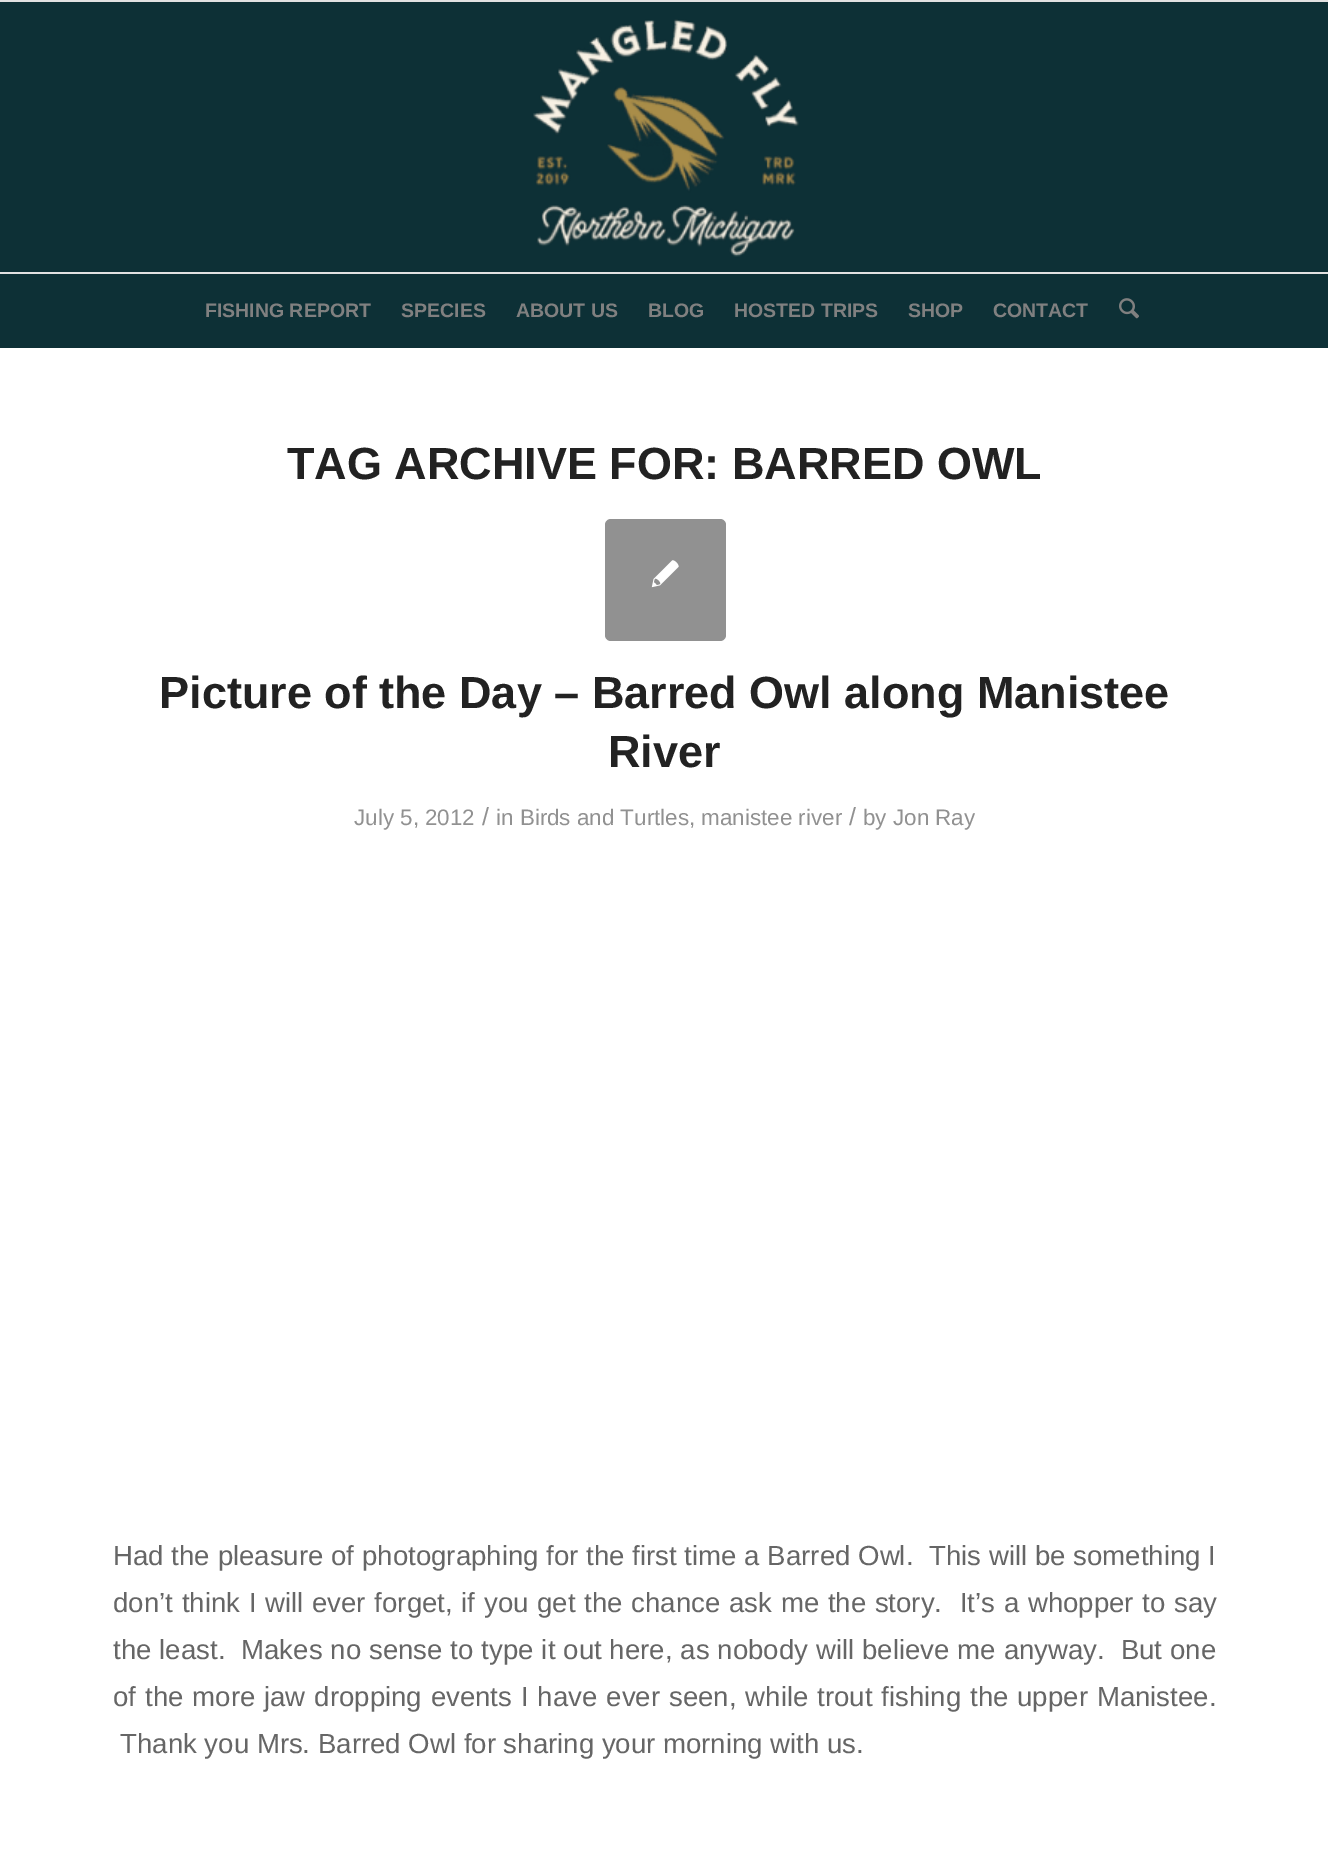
%!PS
<< /PageSize [1328 1858] >> setpagedevice
/roundrect { 5 dict begin { /r /h /w /y /x } { exch def } forall
  x r add y moveto x w add y 2 copy h add r arct x w add y h add x 1 index r arct
  x y h add x y r arct x y 2 copy exch w add exch r arct closepath end } def
/picture { 5 dict begin { /h /w /y /x /name } { exch def } forall
  gsave x y translate w h scale
  w h 8 [w 0 0 h 0 0] name (r) file false 3 colorimage grestore end } def
0 1858 translate 1 -1 scale
4 setmiterlimit
0.051 0.188 0.212 setrgbcolor
0 0 1328 1858 rectfill
0.882 setgray
0 0 1328 2 rectfill
(img1.rgb) 533 19 266 238 picture
0 272 1328 2 rectfill
/LiberationSans-Bold [19.5 0 0 -19.5 0 0] selectfont
0.502 setgray
205 317 moveto (FISHING REPORT) show
401 317 moveto (SPECIES) show
516 317 moveto (ABOUT US) show
648 317 moveto (BLOG) show
734 317 moveto (HOSTED TRIPS) show
908 317 moveto (SHOP) show
993 317 moveto (CONTACT) show
(img2.rgb) 1119 298 20 21 picture
1 setgray
0 348 1328 1510 rectfill
/LiberationSans-Bold [45 0 0 -45 0 0] selectfont
0.133 setgray
287 479 moveto (TAG ARCHIVE FOR: BARRED OWL) show
0.569 setgray
605 519 121 122 6 roundrect fill
(img3.rgb) 651 560 28 28 picture
0.133 setgray
159 708 moveto (Picture of the Day – Barred Owl along Manistee) show
608 767 moveto (River) show
/LiberationSans-Regular [22.4 0 0 -22.4 0 0] selectfont
0.569 setgray
354 825 moveto (July 5, 2012) show
/LiberationSans-Regular [25 0 0 -25 0 0] selectfont
482 825 moveto (/) show
/LiberationSans-Regular [22.4 0 0 -22.4 0 0] selectfont
496 825 moveto (in Birds and Turtles, manistee river) show
/LiberationSans-Regular [25 0 0 -25 0 0] selectfont
849 825 moveto (/) show
/LiberationSans-Regular [22.4 0 0 -22.4 0 0] selectfont
863 825 moveto (by Jon Ray) show
/LiberationSans-Regular [27.6 0 0 -27.6 0 0] selectfont
0.4 setgray
113 1565 moveto 0.1 0 32 (Had the pleasure of photographing for the first time a Barred Owl.  This will be something I) widthshow
113 1612 moveto 1.05 0 32 (don’t think I will ever forget, if you get the chance ask me the story.  It’s a whopper to say) widthshow
113 1659 moveto 0.25 0 32 (the least.  Makes no sense to type it out here, as nobody will believe me anyway.  But one) widthshow
113 1706 moveto 1.25 0 32 (of the more jaw dropping events I have ever seen, while trout fishing the upper Manistee.) widthshow
120 1753 moveto (Thank you Mrs. Barred Owl for sharing your morning with us.) show
showpage
